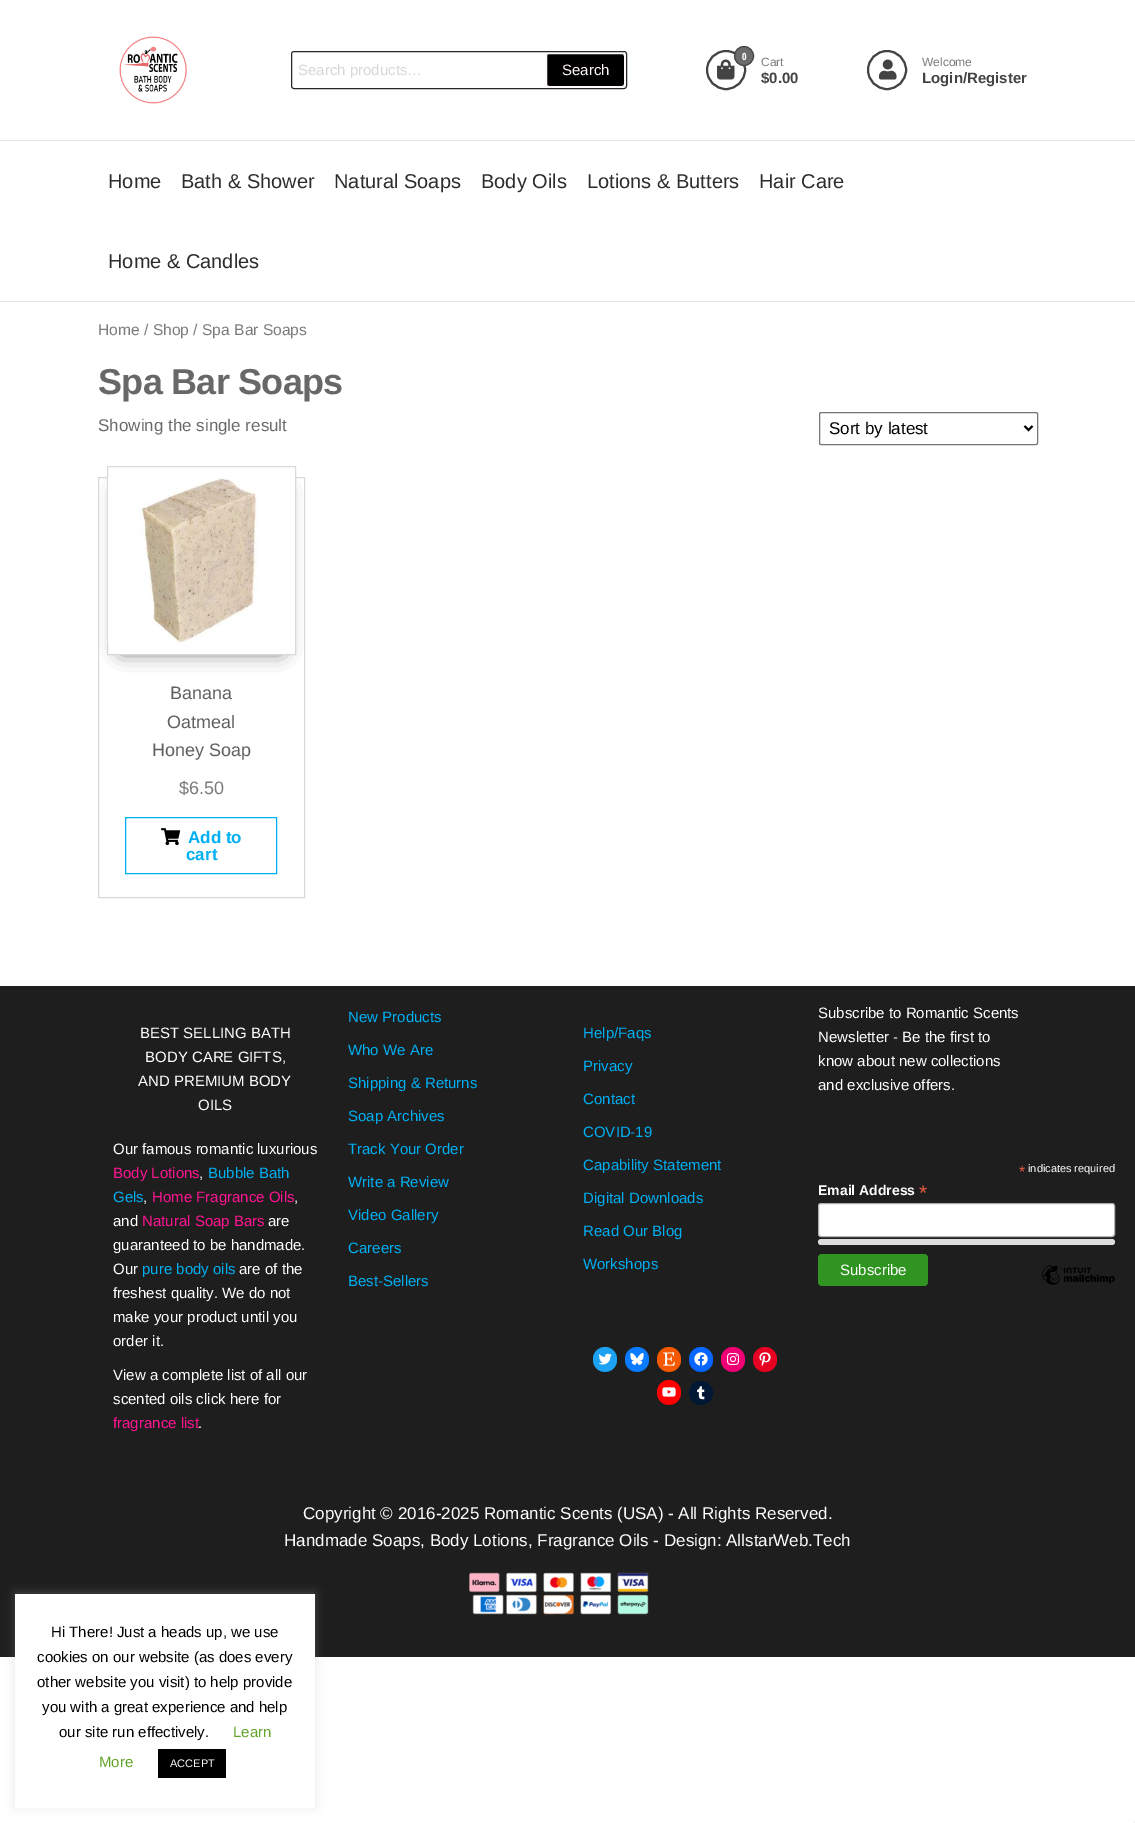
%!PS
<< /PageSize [1135 1823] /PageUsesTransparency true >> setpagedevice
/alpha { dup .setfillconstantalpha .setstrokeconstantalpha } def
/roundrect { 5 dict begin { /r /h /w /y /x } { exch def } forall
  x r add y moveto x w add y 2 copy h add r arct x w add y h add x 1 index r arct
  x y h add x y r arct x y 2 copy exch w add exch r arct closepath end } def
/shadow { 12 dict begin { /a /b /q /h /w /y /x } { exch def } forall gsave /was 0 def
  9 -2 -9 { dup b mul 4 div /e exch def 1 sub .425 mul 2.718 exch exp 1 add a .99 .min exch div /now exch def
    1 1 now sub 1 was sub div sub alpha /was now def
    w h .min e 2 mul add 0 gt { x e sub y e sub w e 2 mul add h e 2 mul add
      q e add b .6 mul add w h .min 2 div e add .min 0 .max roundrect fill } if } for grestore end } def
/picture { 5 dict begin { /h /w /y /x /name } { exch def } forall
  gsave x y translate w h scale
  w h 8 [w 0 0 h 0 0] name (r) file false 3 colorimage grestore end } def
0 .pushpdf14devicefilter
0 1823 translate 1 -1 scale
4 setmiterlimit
1 setgray
0 0 1135 1823 rectfill
0.886 setgray
0 140 1135 1 rectfill
(img1.rgb) 119 36 68 68 picture
0.153 setgray
291.5 51.5 335 37 2.5 roundrect stroke
/LiberationSans-Regular [15 0 0 -15 0 0] selectfont
0.843 setgray
298 75 moveto (Search products…) show
0 setgray
546.5 53.5 78 33 2.5 roundrect gsave fill grestore
1 0.969 0.969 setrgbcolor
stroke
562 75 moveto (Search) show
0.263 setgray
2 setlinewidth
newpath 726 70 19 0 360 arc closepath stroke
(img2.rgb) 717 59 18 21 picture
0.42 setgray
newpath 744 56 9.5 0 360 arc closepath gsave fill grestore
0.263 setgray
1 setlinewidth
stroke
/OpenSansCondensed-Bold [10 0 0 -10 0 0] selectfont
1 setgray
742 60 moveto (0) show
/LiberationSans-Regular [12 0 0 -12 0 0] selectfont
0.482 setgray
761 66 moveto (Cart) show
/LiberationSans-Bold [15 0 0 -15 0 0] selectfont
0.263 setgray
761 83 moveto ($0.00) show
2 setlinewidth
newpath 887 70 19 0 360 arc closepath stroke
(img3.rgb) 879 59 18 21 picture
/LiberationSans-Regular [12 0 0 -12 0 0] selectfont
0.482 setgray
922 66 moveto (Welcome) show
/LiberationSans-Bold [15 0 0 -15 0 0] selectfont
0.263 setgray
922 83 moveto (Login/Register) show
0.886 setgray
0 301 1135 1 rectfill
/LiberationSans-Regular [20 0 0 -20 0 0] selectfont
0.176 setgray
108 188 moveto (Home) show
181 188 moveto (Bath & Shower) show
334 188 moveto (Natural Soaps) show
481 188 moveto (Body Oils) show
587 188 moveto (Lotions & Butters) show
759 188 moveto (Hair Care) show
108 268 moveto (Home & Candles) show
/LiberationSans-Regular [15.6 0 0 -15.6 0 0] selectfont
0.482 setgray
98 335 moveto (Home / Shop / Spa Bar Soaps) show
/LiberationSans-Bold [36 0 0 -36 0 0] selectfont
0.408 setgray
98 394 moveto -0.75 0 (Spa Bar Soaps) ashow
/LiberationSans-Regular [17 0 0 -17 0 0] selectfont
98 431 moveto (Showing the single result) show
0.463 setgray
1 setlinewidth
819.5 412.5 218 32 1.5 roundrect stroke
0 setgray
2 setlinewidth
newpath 1024.5 426 moveto 1028.5 430 lineto 1032.5 426 lineto stroke
829 434 moveto (Sort by latest) show
0.851 setgray
1 setlinewidth
98.5 477.5 206 420 rectstroke
gsave
newpath 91 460 moveto 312 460 lineto 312 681 lineto 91 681 lineto closepath 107 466 moveto 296 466 lineto 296 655 lineto 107 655 lineto closepath eoclip newpath
0 setgray
122 491 159 159 0 10 0.75 shadow
grestore
107.5 466.5 188 188 rectstroke
(img4.rgb) 108 477 187 166 picture
/LiberationSans-Regular [18 0 0 -18 0 0] selectfont
0.373 setgray
170 699 moveto (Banana) show
167 728 moveto (Oatmeal) show
152 756 moveto (Honey Soap) show
0.482 setgray
179 794 moveto ($6.50) show
0 0.686 0.949 setrgbcolor
125.5 817.5 151 56 rectstroke
(img5.rgb) 161 828 20 18 picture
/LiberationSans-Bold [17 0 0 -17 0 0] selectfont
188 843 moveto (Add to) show
186 860 moveto (cart) show
0.118 setgray
0 986 1135 671 rectfill
/LiberationSans-Regular [15 0 0 -15 0 0] selectfont
1 setgray
140 1038 moveto (BEST SELLING BATH) show
145 1062 moveto (BODY CARE GIFTS,) show
138 1086 moveto (AND PREMIUM BODY) show
198 1110 moveto (OILS) show
113 1154 moveto (Our famous romantic luxurious) show
1 0.078 0.576 setrgbcolor
113 1178 moveto (Body Lotions) show
1 setgray
199 1178 moveto (,) show
0 0.686 0.949 setrgbcolor
208 1178 moveto (Bubble Bath) show
113 1202 moveto (Gels) show
1 setgray
143 1202 moveto (,) show
1 0.078 0.576 setrgbcolor
152 1202 moveto (Home Fragrance Oils) show
1 setgray
294 1202 moveto (,) show
113 1226 moveto (and) show
1 0.078 0.576 setrgbcolor
142 1226 moveto (Natural Soap Bars) show
1 setgray
268 1226 moveto (are) show
113 1250 moveto (guaranteed to be handmade.) show
113 1274 moveto (Our) show
0 0.686 0.949 setrgbcolor
142 1274 moveto (pure body oils) show
1 setgray
239 1274 moveto (are of the) show
113 1298 moveto (freshest quality. We do not) show
113 1322 moveto (make your product until you) show
113 1346 moveto (order it.) show
113 1380 moveto (View a complete list of all our) show
113 1404 moveto (scented oils click here for) show
1 0.078 0.576 setrgbcolor
113 1428 moveto (fragrance list) show
1 setgray
198 1428 moveto (.) show
0 0.686 0.949 setrgbcolor
348 1022 moveto (New Products) show
348 1055 moveto (Who We Are) show
348 1088 moveto (Shipping & Returns) show
348 1121 moveto (Soap Archives) show
348 1154 moveto (Track Your Order) show
348 1187 moveto (Write a Review) show
348 1220 moveto (Video Gallery) show
348 1253 moveto (Careers) show
348 1286 moveto (Best-Sellers) show
583 1038 moveto (Help/Faqs) show
583 1071 moveto (Privacy) show
583 1104 moveto (Contact) show
583 1137 moveto (COVID-19) show
583 1170 moveto (Capability Statement) show
583 1203 moveto (Digital Downloads) show
583 1236 moveto (Read Our Blog) show
583 1269 moveto (Workshops) show
1 setgray
818 1018 moveto (Subscribe to Romantic Scents) show
818 1042 moveto (Newsletter - Be the first to) show
818 1066 moveto (know about new collections) show
818 1090 moveto (and exclusive offers.) show
/LiberationSans-Regular [16 0 0 -16 0 0] selectfont
0.91 0.361 0.255 setrgbcolor
1019 1177 moveto (*) show
/LiberationSans-Regular [11 0 0 -11 0 0] selectfont
1 setgray
1028 1172 moveto (indicates required) show
/LiberationSans-Bold [14 0 0 -14 0 0] selectfont
818 1195 moveto (Email Address) show
/LiberationSans-Regular [21 0 0 -21 0 0] selectfont
0.91 0.361 0.255 setrgbcolor
919 1200 moveto (*) show
1 setgray
818.5 1203.5 296 33 2.5 roundrect gsave fill grestore
0.671 0.69 0.698 setrgbcolor
stroke
0.867 setgray
818 1239 297 6 3 roundrect fill
0.188 0.584 0.125 setrgbcolor
818 1254 110 32 4 roundrect fill
/LiberationSans-Regular [15 0 0 -15 0 0] selectfont
1 setgray
840 1275 moveto (Subscribe) show
(img6.rgb) 1041 1265 74 20 picture
0.114 0.631 0.949 setrgbcolor
593 1347 24 25 12 roundrect fill
0.08 alpha
0 setgray
599 1371 12 1 rectfill
1 alpha
(img7.rgb) 598 1353 14 12 picture
0.039 0.478 1 setrgbcolor
625 1347 24 25 12 roundrect fill
0.08 alpha
0 setgray
631 1371 12 1 rectfill
1 alpha
(img8.rgb) 630 1353 14 12 picture
0.957 0.345 0 setrgbcolor
657 1347 24 25 12 roundrect fill
0.08 alpha
0 setgray
663 1371 12 1 rectfill
1 alpha
(img9.rgb) 663 1352 12 14 picture
0.031 0.4 1 setrgbcolor
689 1347 24 25 12 roundrect fill
0.08 alpha
0 setgray
695 1371 12 1 rectfill
1 alpha
(img10.rgb) 694 1352 14 14 picture
0.941 0 0.459 setrgbcolor
721 1347 24 25 12 roundrect fill
0.08 alpha
0 setgray
727 1371 12 1 rectfill
1 alpha
(img11.rgb) 727 1353 12 12 picture
0.902 0.004 0.133 setrgbcolor
753 1347 24 25 12 roundrect fill
0.08 alpha
0 setgray
759 1371 12 1 rectfill
1 alpha
(img12.rgb) 759 1352 12 14 picture
1 0 0 setrgbcolor
657 1380 24 25 12 roundrect fill
0.08 alpha
0 setgray
663 1404 12 1 rectfill
1 alpha
(img13.rgb) 662 1387 14 10 picture
0.004 0.094 0.208 setrgbcolor
newpath 701 1393 12 0 360 arc closepath fill
(img14.rgb) 697 1386 8 14 picture
/LiberationSans-Regular [17 0 0 -17 0 0] selectfont
1 setgray
303 1519 moveto (Copyright © 2016-2025 Romantic Scents \(USA\) - All Rights Reserved.) show
284 1546 moveto (Handmade Soaps, Body Lotions, Fragrance Oils - Design: AllstarWeb.Tech) show
(img15.rgb) 469 1572 180 43 picture
0.675 0.671 0.671 setrgbcolor
15 1593 300 214 0 5 0.3 shadow
1 setgray
15 1594 300 214 rectfill
/LiberationSans-Regular [15 0 0 -15 0 0] selectfont
0 setgray
51 1637 moveto (Hi There! Just a heads up, we use) show
37 1662 moveto (cookies on our website \(as does every) show
37 1687 moveto (other website you visit\) to help provide) show
42 1712 moveto (you with a great experience and help) show
59 1737 moveto (our site run effectively.) show
0.384 0.639 0.161 setrgbcolor
233 1737 moveto (Learn) show
99 1767 moveto (More) show
0 setgray
158 1749 68 29 rectfill
/LiberationSans-Regular [11 0 0 -11 0 0] selectfont
1 setgray
170 1767 moveto (ACCEPT) show
0.961 setgray
1133 1821 2 2 rectfill
.poppdf14devicefilter showpage
